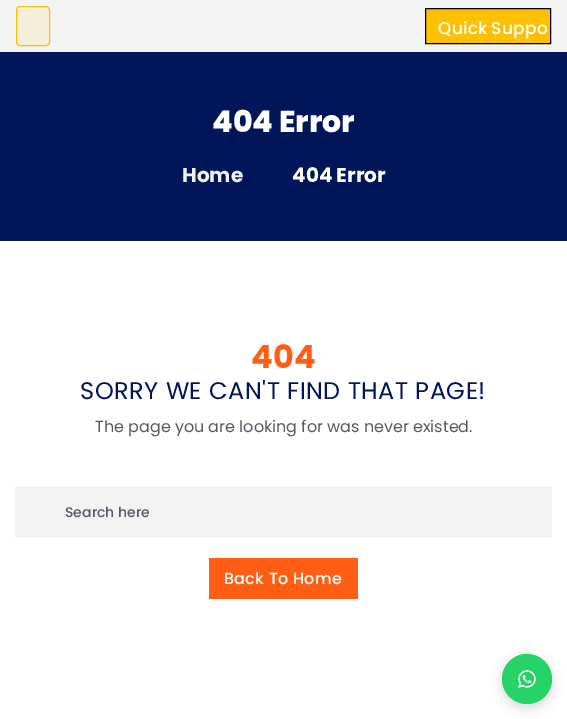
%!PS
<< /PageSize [567 719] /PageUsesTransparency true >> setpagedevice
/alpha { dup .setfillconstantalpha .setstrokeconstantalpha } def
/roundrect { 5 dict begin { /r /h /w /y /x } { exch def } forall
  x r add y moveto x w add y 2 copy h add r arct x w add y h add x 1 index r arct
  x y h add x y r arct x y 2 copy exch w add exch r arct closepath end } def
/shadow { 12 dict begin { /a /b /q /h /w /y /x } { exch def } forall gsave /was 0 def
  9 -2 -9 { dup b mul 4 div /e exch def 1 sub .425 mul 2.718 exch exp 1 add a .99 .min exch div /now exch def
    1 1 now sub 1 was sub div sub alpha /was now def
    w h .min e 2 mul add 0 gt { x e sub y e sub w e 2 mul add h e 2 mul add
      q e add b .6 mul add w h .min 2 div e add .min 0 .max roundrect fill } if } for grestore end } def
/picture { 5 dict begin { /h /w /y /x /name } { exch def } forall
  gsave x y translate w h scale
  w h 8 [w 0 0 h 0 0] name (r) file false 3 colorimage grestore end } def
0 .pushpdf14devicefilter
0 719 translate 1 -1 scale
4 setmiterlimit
1 setgray
0 0 567 719 rectfill
0.953 setgray
0 0 567 52 rectfill
0.957 0.933 0.859 setrgbcolor
16.5 6.5 33 39 3.5 roundrect gsave fill grestore
1 0.753 0.004 setrgbcolor
stroke
newpath 425.5 8.5 moveto 550.5 8.5 lineto 550.5 43.5 lineto 425.5 43.5 lineto closepath gsave fill grestore
0 setgray
stroke
/Poppins-Medium [17 0 0 -17 0 0] selectfont
1 setgray
438 34 moveto -1 0 32 0.25 0 (Quick Suppo) awidthshow
0 0.086 0.349 setrgbcolor
0 52 567 189 rectfill
/Poppins-ExtraBold [30 0 0 -30 0 0] selectfont
1 setgray
212 132 moveto (404 Error) show
/Poppins-Bold [20 0 0 -20 0 0] selectfont
0.953 setgray
182 182 moveto (Home) show
1 setgray
292 182 moveto (404 Error) show
/Poppins-Bold [32 0 0 -32 0 0] selectfont
1 0.369 0.078 setrgbcolor
251 368 moveto (404) show
/Poppins-Regular [24 0 0 -24 0 0] selectfont
0 0.086 0.349 setrgbcolor
80 399 moveto 0.5 0 (SORRY WE CAN'T FIND THAT PAGE!) ashow
/Poppins-Regular [16 0 0 -16 0 0] selectfont
0.337 0.349 0.412 setrgbcolor
95 432 moveto (The page you are looking for was never existed.) show
0.953 setgray
15 486 537 52 rectfill
/Poppins-Medium [14 0 0 -14 0 0] selectfont
0.337 0.349 0.412 setrgbcolor
65 517 moveto (Search here) show
1 0.369 0.078 setrgbcolor
209 558 149 41 rectfill
/Poppins-Medium [16 0 0 -16 0 0] selectfont
1 setgray
224 584 moveto 0.25 0 (Back To Home) ashow
0 setgray
502 658 50 50 25 6 0.15 shadow
0.145 0.827 0.4 setrgbcolor
newpath 527 679 25 0 360 arc closepath fill
(img1.rgb) 518 670 18 18 picture
.poppdf14devicefilter showpage
